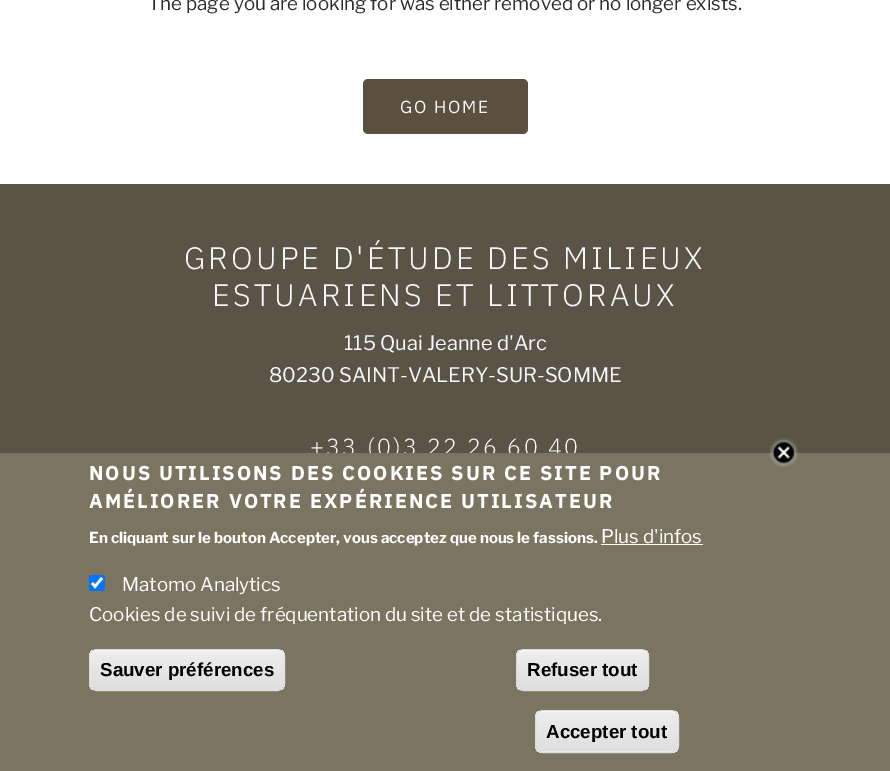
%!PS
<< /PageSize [890 771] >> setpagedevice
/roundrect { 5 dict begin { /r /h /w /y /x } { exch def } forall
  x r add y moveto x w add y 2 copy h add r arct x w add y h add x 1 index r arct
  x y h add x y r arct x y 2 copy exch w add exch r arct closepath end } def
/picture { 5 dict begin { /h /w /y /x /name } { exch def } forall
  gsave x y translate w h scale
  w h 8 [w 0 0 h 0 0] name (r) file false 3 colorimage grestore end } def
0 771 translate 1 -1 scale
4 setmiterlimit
1 setgray
0 0 890 771 rectfill
/LibreFranklin-Regular [18.75 0 0 -18.75 0 0] selectfont
0.176 setgray
148 10 moveto (The page you are looking for was either removed or no longer exists.) show
0.357 0.31 0.243 setrgbcolor
363 79 165 55 5 roundrect fill
/IBMPlexSans-Regular [17.5 0 0 -17.5 0 0] selectfont
0.965 0.976 0.988 setrgbcolor
400 113 moveto 1.75 0 (GO HOME) ashow
0.349 0.329 0.271 setrgbcolor
0 184 890 269 rectfill
/IBMPlexSans-Light [31 0 0 -31 0 0] selectfont
0.965 0.976 0.988 setrgbcolor
184 269 moveto 3.1 0 (GROUPE D'ÉTUDE DES MILIEUX) ashow
212 306 moveto 3.1 0 (ESTUARIENS ET LITTORAUX) ashow
/LibreFranklin-Regular [20 0 0 -20 0 0] selectfont
344 350 moveto (115 Quai Jeanne d'Arc) show
269 382 moveto (80230 SAINT-VALERY-SUR-SOMME) show
/IBMPlexSans-Light [23.25 0 0 -23.25 0 0] selectfont
310 455 moveto 2.3 0 (+33 \(0\)3 22 26 60 40) ashow
0.482 0.455 0.376 setrgbcolor
0 453 890 318 rectfill
(img1.rgb) 769 438 30 29 picture
/IBMPlexSans-Bold [20 0 0 -20 0 0] selectfont
1 setgray
89 480 moveto 2 0 (NOUS UTILISONS DES COOKIES SUR CE SITE POUR) ashow
89 508 moveto 2 0 (AMÉLIORER VOTRE EXPÉRIENCE UTILISATEUR) ashow
/LibreFranklin-Bold [15 0 0 -15 0 0] selectfont
89 543 moveto (En cliquant sur le bouton Accepter, vous acceptez que nous le fassions.) show
/LibreFranklin-Regular [18.75 0 0 -18.75 0 0] selectfont
601 543 moveto (Plus d'infos) show
601 544 102 1 rectfill
0 0.459 1 setrgbcolor
89 575 16 16 2.5 roundrect fill
1 setgray
2.6 setlinewidth
newpath 92 583 moveto 95 586.5 lineto 102 578 lineto stroke
122 591 moveto (Matomo Analytics) show
89 621 moveto (Cookies de suivi de fréquentation du site et de statistiques.) show
gsave
89 649 196 42 8 roundrect clip newpath
gsave newpath 89 650 moveto 285 650 lineto 285 690 lineto 89 690 lineto closepath clip newpath
<< /ShadingType 2 /ColorSpace /DeviceRGB /Coords [187 650 187 690] /Extend [true true] /Function << /FunctionType 3 /Domain [0 1] /Functions [<< /FunctionType 2 /Domain [0 1] /C0 [0.929 0.929 0.929] /C1 [0.929 0.929 0.929] /N 1 >> << /FunctionType 2 /Domain [0 1] /C0 [0.929 0.929 0.929] /C1 [0.875 0.875 0.875] /N 1 >>] /Bounds [0.05] /Encode [0 1 0 1] >> >> shfill grestore
grestore
newpath 96 651 moveto 278 651 lineto 281 651 284 654 284 658 curveto 284 656 lineto 284 653 281 650 278 650 curveto 96 650 lineto 93 650 90 653 90 656 curveto 90 658 lineto 90 654 93 651 96 651 curveto closepath fill
0.863 setgray
1 setlinewidth
89.5 649.5 195 41 7.5 roundrect stroke
/LiberationSans-Bold [18.75 0 0 -18.75 0 0] selectfont
0 setgray
100 676 moveto (Sauver préférences) show
gsave
516 649 133 42 8 roundrect clip newpath
gsave newpath 516 650 moveto 649 650 lineto 649 690 lineto 516 690 lineto closepath clip newpath
<< /ShadingType 2 /ColorSpace /DeviceRGB /Coords [583 650 583 690] /Extend [true true] /Function << /FunctionType 3 /Domain [0 1] /Functions [<< /FunctionType 2 /Domain [0 1] /C0 [0.929 0.929 0.929] /C1 [0.929 0.929 0.929] /N 1 >> << /FunctionType 2 /Domain [0 1] /C0 [0.929 0.929 0.929] /C1 [0.875 0.875 0.875] /N 1 >>] /Bounds [0.05] /Encode [0 1 0 1] >> >> shfill grestore
grestore
1 setgray
newpath 524 651 moveto 641 651 lineto 645 651 648 654 648 658 curveto 648 656 lineto 648 653 645 650 642 650 curveto 524 650 lineto 521 650 518 653 518 656 curveto 518 658 lineto 518 654 520 651 524 651 curveto closepath fill
0.863 setgray
516.5 649.5 132 41 7.5 roundrect stroke
0 setgray
527 676 moveto (Refuser tout) show
gsave
535 710 144 43 8 roundrect clip newpath
gsave newpath 535 711 moveto 679 711 lineto 679 751 lineto 535 751 lineto closepath clip newpath
<< /ShadingType 2 /ColorSpace /DeviceRGB /Coords [607 711 607 751] /Extend [true true] /Function << /FunctionType 3 /Domain [0 1] /Functions [<< /FunctionType 2 /Domain [0 1] /C0 [0.929 0.929 0.929] /C1 [0.929 0.929 0.929] /N 1 >> << /FunctionType 2 /Domain [0 1] /C0 [0.929 0.929 0.929] /C1 [0.875 0.875 0.875] /N 1 >>] /Bounds [0.05] /Encode [0 1 0 1] >> >> shfill grestore
gsave newpath 535 751 moveto 679 751 lineto 679 753 lineto 535 753 lineto closepath clip newpath
<< /ShadingType 2 /ColorSpace /DeviceRGB /Coords [607 751 607 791] /Extend [true true] /Function << /FunctionType 3 /Domain [0 1] /Functions [<< /FunctionType 2 /Domain [0 1] /C0 [0.929 0.929 0.929] /C1 [0.929 0.929 0.929] /N 1 >> << /FunctionType 2 /Domain [0 1] /C0 [0.929 0.929 0.929] /C1 [0.875 0.875 0.875] /N 1 >>] /Bounds [0.05] /Encode [0 1 0 1] >> >> shfill grestore
grestore
1 setgray
newpath 542 712 moveto 671 712 lineto 675 712 678 715 678 719 curveto 678 717 lineto 678 714 675 711 672 711 curveto 542 711 lineto 539 711 536 714 536 717 curveto 536 719 lineto 536 715 539 712 542 712 curveto closepath fill
0.863 setgray
535.5 710.5 143 42 7.5 roundrect stroke
0 setgray
546 738 moveto (Accepter tout) show
showpage
